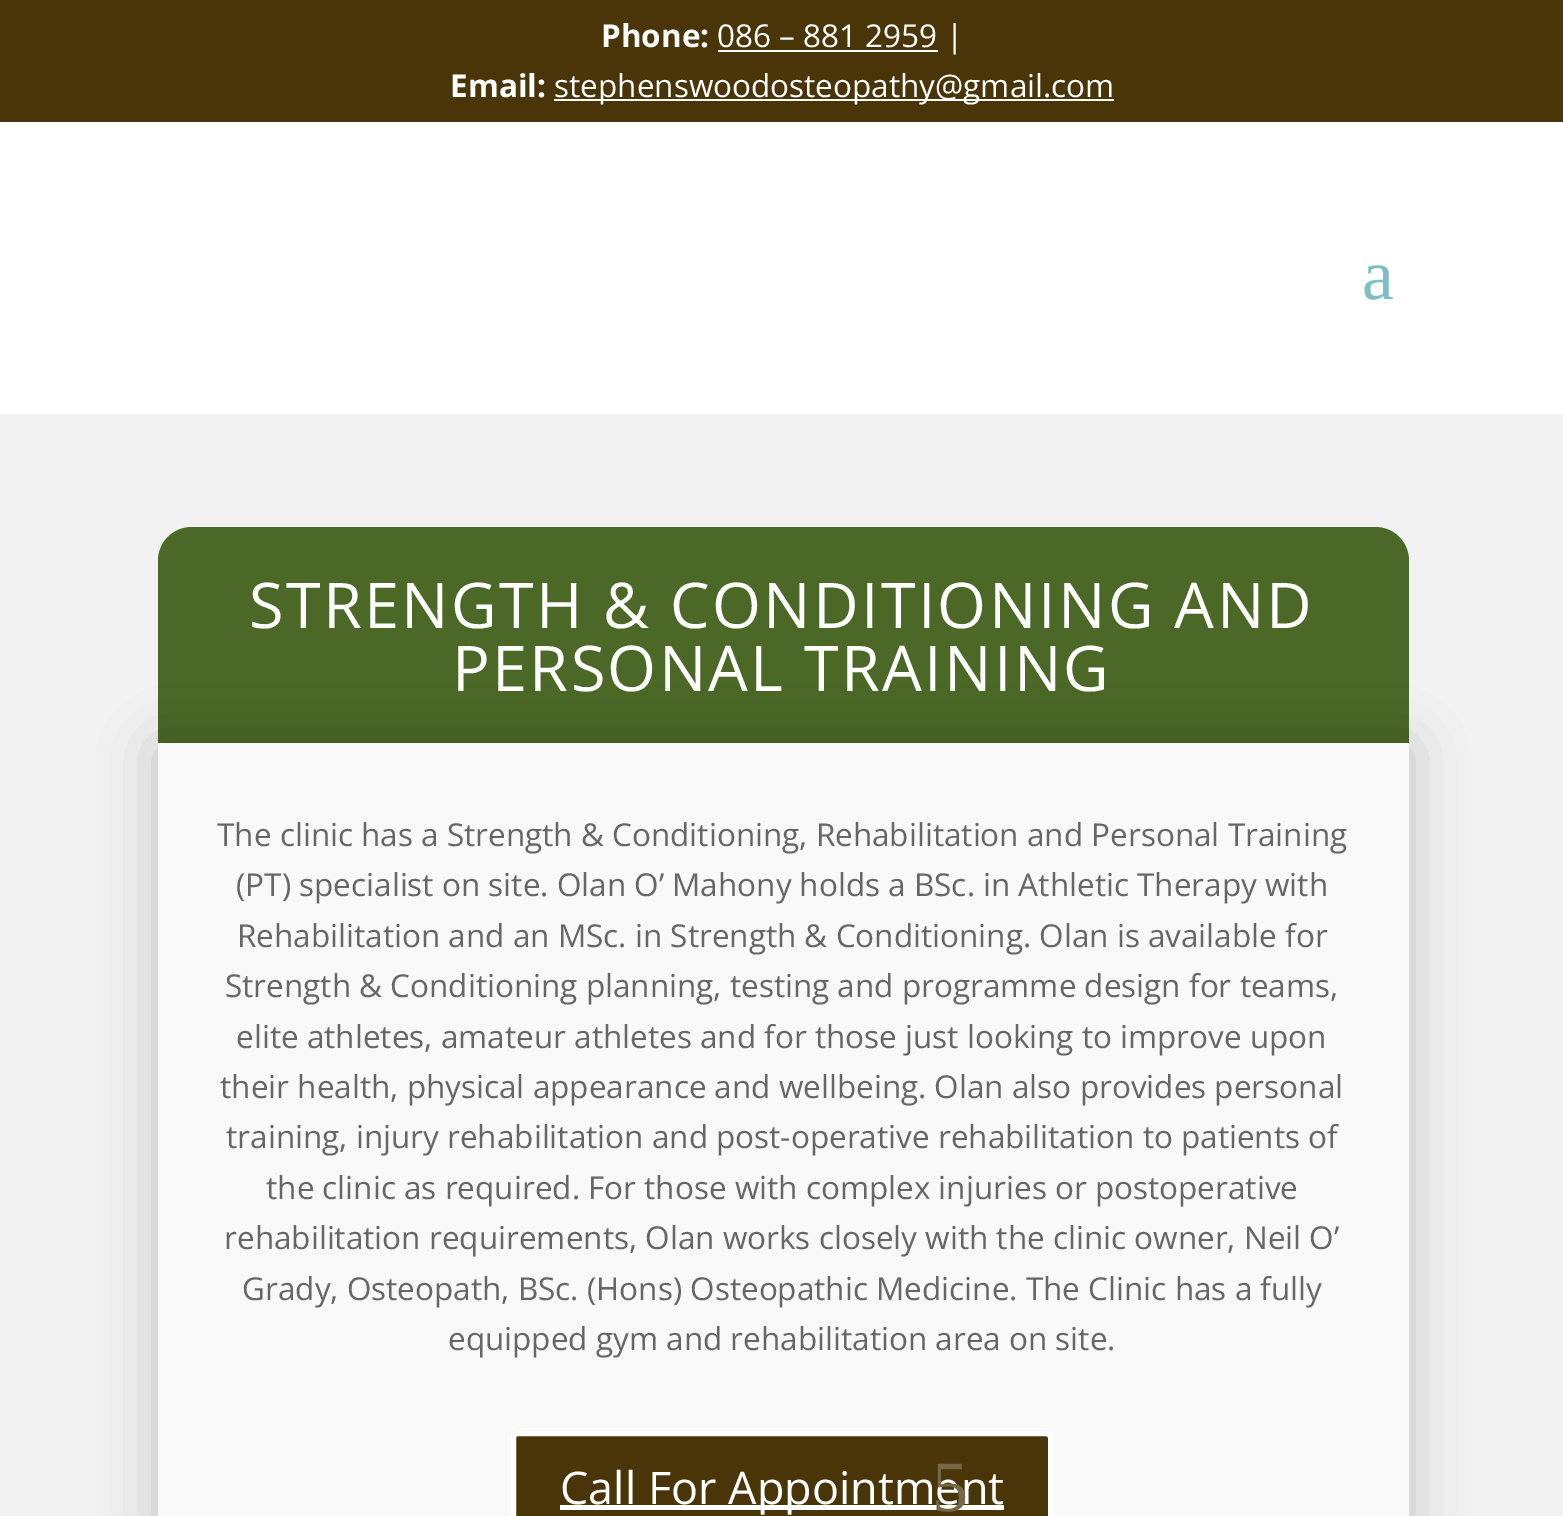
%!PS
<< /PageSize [1563 1516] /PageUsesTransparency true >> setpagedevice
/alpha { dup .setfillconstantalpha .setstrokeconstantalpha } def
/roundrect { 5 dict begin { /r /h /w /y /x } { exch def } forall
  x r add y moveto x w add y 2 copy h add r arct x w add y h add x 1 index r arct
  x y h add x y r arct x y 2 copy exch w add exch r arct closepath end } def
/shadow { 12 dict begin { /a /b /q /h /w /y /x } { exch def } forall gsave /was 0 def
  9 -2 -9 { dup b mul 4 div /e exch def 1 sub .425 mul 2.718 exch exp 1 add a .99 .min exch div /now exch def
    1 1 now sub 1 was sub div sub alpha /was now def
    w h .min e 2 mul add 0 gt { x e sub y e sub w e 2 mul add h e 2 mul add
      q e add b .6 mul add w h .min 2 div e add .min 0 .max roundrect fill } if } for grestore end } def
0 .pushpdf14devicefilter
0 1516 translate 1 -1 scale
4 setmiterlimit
1 setgray
0 0 1563 1516 rectfill
0.286 0.208 0.031 setrgbcolor
0 0 1563 122 rectfill
/OpenSans-Bold [31.5 0 0 -31.5 0 0] selectfont
1 setgray
601 47 moveto (Phone:) show
718 50 220 2 rectfill
/OpenSans-Regular [31.5 0 0 -31.5 0 0] selectfont
717 47 moveto (086 – 881 2959 |) show
/OpenSans-Bold [31.5 0 0 -31.5 0 0] selectfont
450 97 moveto (Email:) show
554 99 560 2 rectfill
/OpenSans-Regular [31.5 0 0 -31.5 0 0] selectfont
554 97 moveto (stephenswoodosteopathy@gmail.com) show
/LiberationSerif-Regular [72 0 0 -72 0 0] selectfont
0.494 0.745 0.773 setrgbcolor
1362 299 moveto (a) show
0.949 setgray
0 414 1563 1102 rectfill
0.294 0.408 0.149 setrgbcolor
newpath 192 527 moveto 1375 527 lineto 1394 527 1409 542 1409 561 curveto 1409 743 lineto 158 743 lineto 158 561 lineto 158 542 173 527 192 527 curveto closepath fill
/OpenSans-Regular [63 0 0 -63 0 0] selectfont
1 setgray
249 628 moveto 2.25 0 (STRENGTH & CONDITIONING AND) ashow
0 setgray
158 747 1251 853 0 28 0.2 shadow
1 setgray
452 691 moveto 2.25 0 (PERSONAL TRAINING) ashow
0.976 setgray
158 743 1251 773 rectfill
/OpenSans-Regular [31.5 0 0 -31.5 0 0] selectfont
0.4 setgray
217 846 moveto (The clinic has a Strength & Conditioning, Rehabilitation and Personal Training) show
236 896 moveto (\(PT\) specialist on site. Olan O’ Mahony holds a BSc. in Athletic Therapy with) show
237 947 moveto (Rehabilitation and an MSc. in Strength & Conditioning. Olan is available for) show
225 997 moveto (Strength & Conditioning planning, testing and programme design for teams,) show
236 1048 moveto (elite athletes, amateur athletes and for those just looking to improve upon) show
220 1098 moveto (their health, physical appearance and wellbeing. Olan also provides personal) show
226 1148 moveto (training, injury rehabilitation and post-operative rehabilitation to patients of) show
266 1199 moveto (the clinic as required. For those with complex injuries or postoperative) show
224 1249 moveto (rehabilitation requirements, Olan works closely with the clinic owner, Neil O’) show
242 1300 moveto (Grady, Osteopath, BSc. \(Hons\) Osteopathic Medicine. The Clinic has a fully) show
448 1350 moveto (equipped gym and rehabilitation area on site.) show
0.286 0.208 0.031 setrgbcolor
513.5 1433.5 537 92 4.5 roundrect gsave fill grestore
1 setgray
5 setlinewidth
stroke
560 1505 444 5 rectfill
/OpenSans-Regular [45 0 0 -45 0 0] selectfont
560 1504 moveto (Call For Appointment) show
/LiberationSerif-Regular [72 0 0 -72 0 0] selectfont
0.463 0.404 0.275 setrgbcolor
932 1511 moveto (5) show
.poppdf14devicefilter showpage
